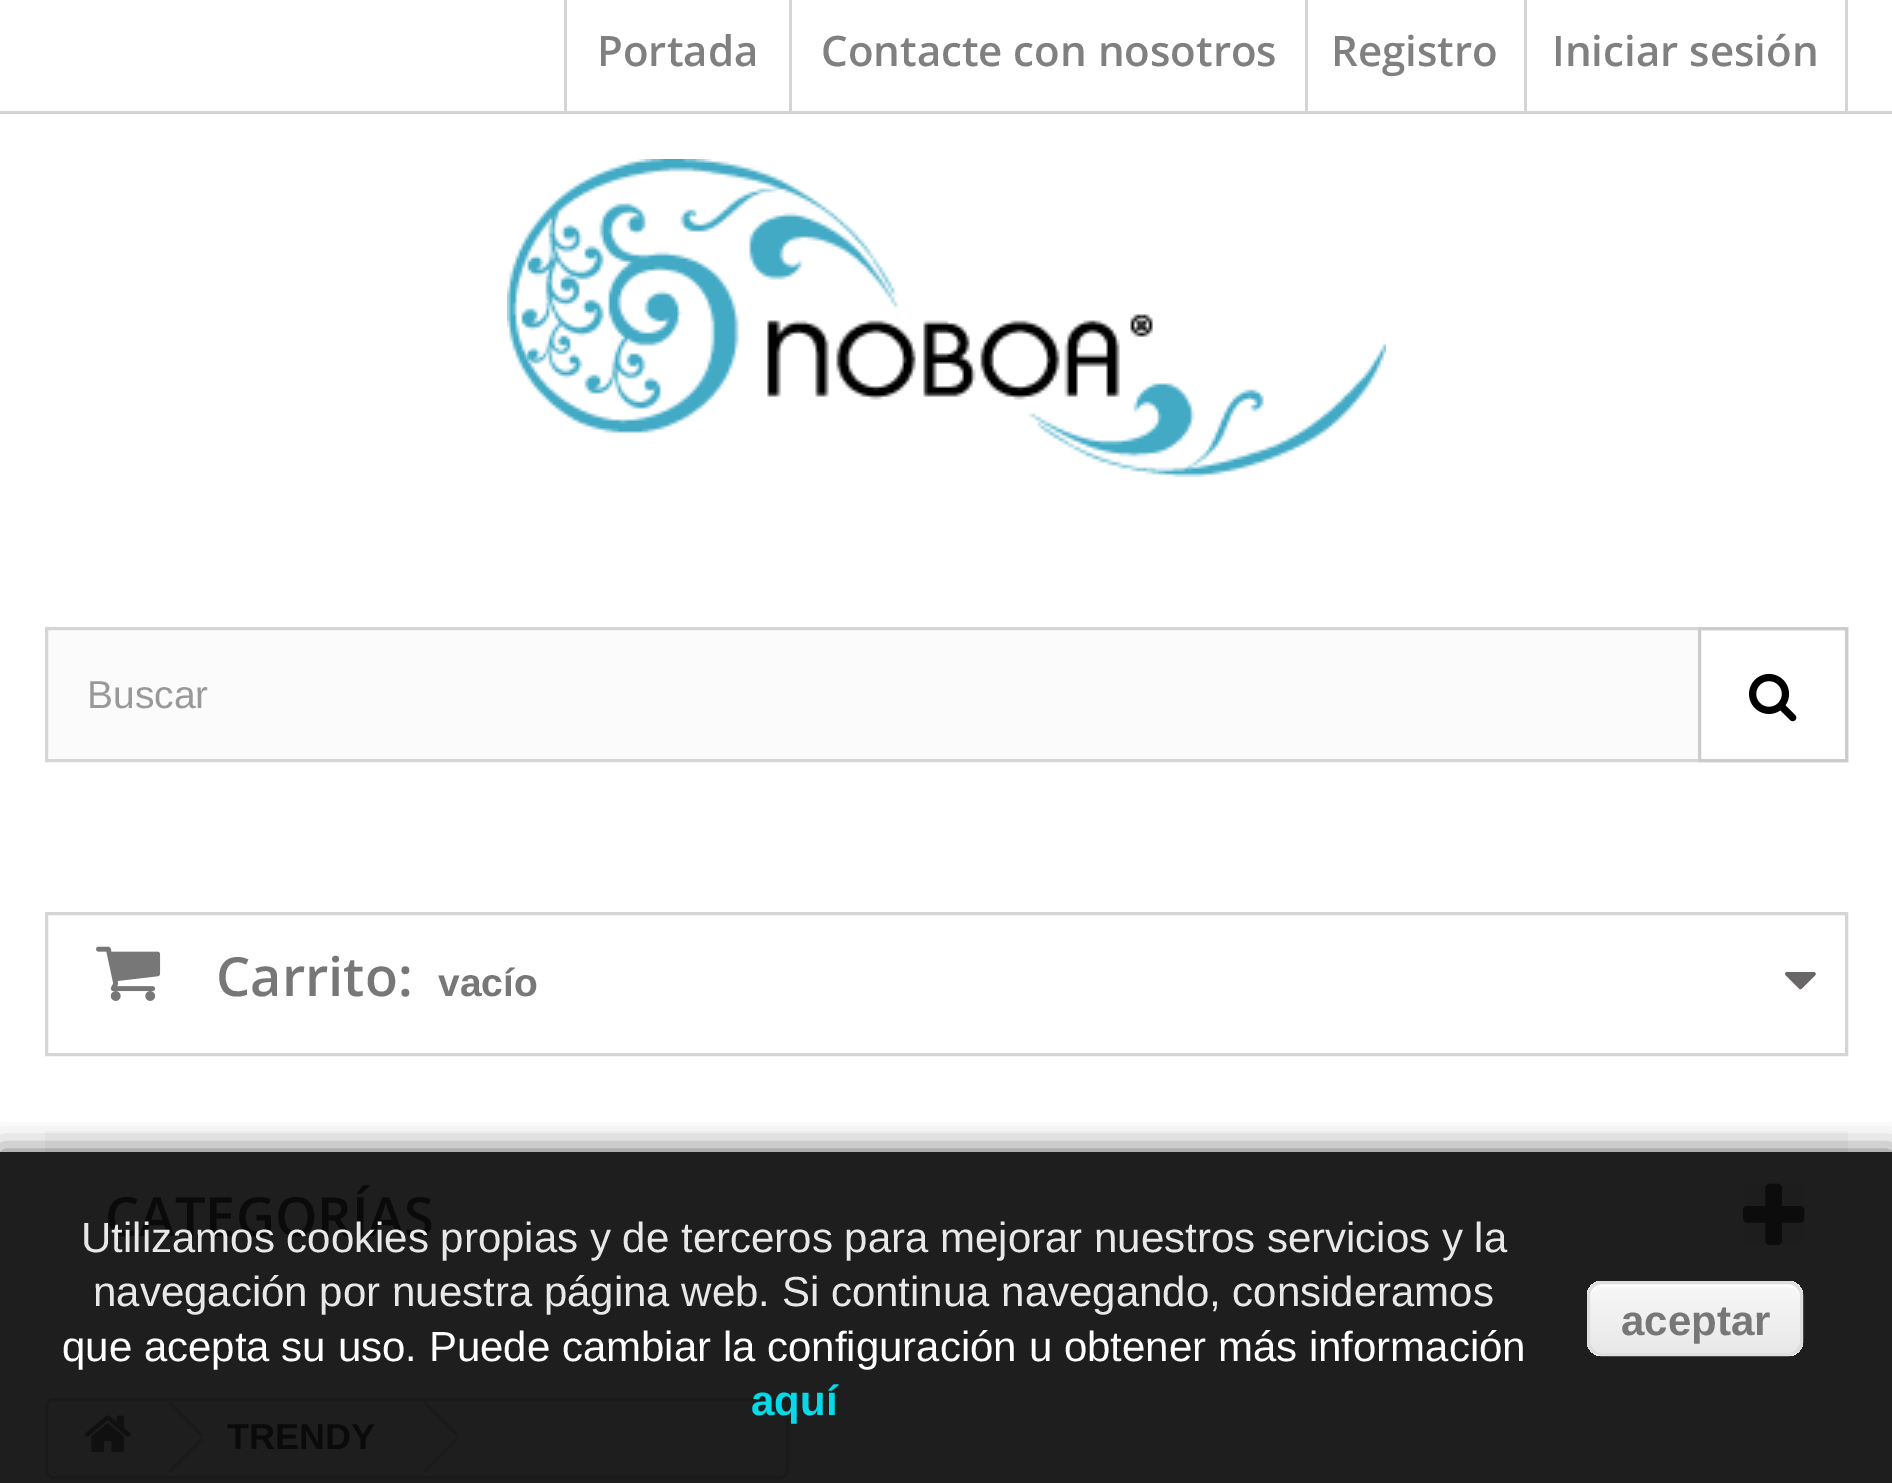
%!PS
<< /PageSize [1892 1483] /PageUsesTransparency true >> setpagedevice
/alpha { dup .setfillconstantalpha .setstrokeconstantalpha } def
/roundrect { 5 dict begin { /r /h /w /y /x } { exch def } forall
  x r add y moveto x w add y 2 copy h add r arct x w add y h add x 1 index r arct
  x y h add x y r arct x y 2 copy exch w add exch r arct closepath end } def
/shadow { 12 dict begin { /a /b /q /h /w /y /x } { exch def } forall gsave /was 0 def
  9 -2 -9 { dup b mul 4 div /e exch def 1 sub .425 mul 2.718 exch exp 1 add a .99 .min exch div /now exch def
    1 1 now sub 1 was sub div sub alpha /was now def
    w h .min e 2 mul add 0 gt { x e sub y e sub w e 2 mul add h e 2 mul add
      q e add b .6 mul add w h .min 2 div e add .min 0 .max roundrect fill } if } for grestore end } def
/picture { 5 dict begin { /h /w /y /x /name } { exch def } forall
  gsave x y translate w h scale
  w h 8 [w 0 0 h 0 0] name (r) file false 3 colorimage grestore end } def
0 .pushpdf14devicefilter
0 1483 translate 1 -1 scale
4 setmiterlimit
1 setgray
0 0 1892 1483 rectfill
0.118 setgray
0 1152 1892 331 rectfill
0.839 0.831 0.831 setrgbcolor
0 111 1892 3 rectfill
564 0 3 111 rectfill
/OpenSans-SemiBold [42 0 0 -42 0 0] selectfont
0.502 setgray
597 66 moveto (Portada) show
0.839 0.831 0.831 setrgbcolor
789 0 3 111 rectfill
0.502 setgray
821 66 moveto (Contacte con nosotros) show
0.839 0.831 0.831 setrgbcolor
1305 0 3 111 rectfill
0.502 setgray
1331 66 moveto (Registro) show
0.839 0.831 0.831 setrgbcolor
1845 0 3 111 rectfill
1524 0 3 111 rectfill
0.502 setgray
1552 66 moveto (Iniciar sesión) show
(img1.rgb) 507 159 879 318 picture
0.984 setgray
48 630 1650 129 rectfill
0.839 0.831 0.831 setrgbcolor
3 setlinewidth
46.5 628.5 1800 132 rectstroke
/LiberationSans-Regular [39 0 0 -39 0 0] selectfont
0.6 setgray
87 708 moveto (Buscar) show
0.8 setgray
1699.5 628.5 147 132 rectstroke
(img2.rgb) 1749 673 48 49 picture
0.839 0.831 0.831 setrgbcolor
46.5 913.5 1800 141 rectstroke
(img3.rgb) 96 946 65 55 picture
/OpenSans-SemiBold [54 0 0 -54 0 0] selectfont
0.467 setgray
216 996 moveto (Carrito:) show
/LiberationSans-Bold [39 0 0 -39 0 0] selectfont
438 996 moveto (vacío) show
(img4.rgb) 1785 972 31 18 picture
0.965 setgray
45 1131 1803 21 rectfill
/OpenSans-SemiBold [54 0 0 -54 0 0] selectfont
0.039 setgray
105 1236 moveto (CATEGORÍAS) show
(img5.rgb) 1743 1183 62 62 picture
0.102 setgray
46.5 1399.5 741 78 7.5 roundrect stroke
(img6.rgb) 84 1415 47 37 picture
newpath 170 1401 moveto 204 1435 lineto 202 1437 lineto 168 1403 lineto closepath fill
newpath 202 1437 moveto 204 1439 lineto 170 1473 lineto 168 1471 lineto closepath fill
newpath 425 1401 moveto 459 1435 lineto 457 1437 lineto 423 1403 lineto closepath fill
newpath 457 1437 moveto 459 1439 lineto 425 1473 lineto 423 1471 lineto closepath fill
gsave
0 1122 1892 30 rectclip
0.341 setgray
0 1152 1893 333 0 15 0.9 shadow
grestore
/LiberationSans-Regular [42 0 0 -42 0 0] selectfont
0.91 setgray
81 1252 moveto (Utilizamos cookies propias y de terceros para mejorar nuestros servicios y la) show
93 1306 moveto (navegación por nuestra página web. Si continua navegando, consideramos) show
1 setgray
62 1361 moveto (que acepta su uso. Puede cambiar la configuración u obtener más información) show
/LiberationSans-Bold [42 0 0 -42 0 0] selectfont
0.016 0.851 0.91 setrgbcolor
751 1415 moveto (aquí) show
0.89 setgray
1587 1281 216 75 15 roundrect fill
gsave
1587 1281 216 75 15 roundrect clip newpath
gsave newpath 1587 1281 moveto 1803 1281 lineto 1803 1284 lineto 1587 1284 lineto closepath clip newpath
<< /ShadingType 2 /ColorSpace /DeviceRGB /Coords [1590 1215 1590 1284] /Extend [true true] /Function << /FunctionType 3 /Domain [0 1] /Functions [<< /FunctionType 2 /Domain [0 1] /C0 [0.976 0.976 0.976] /C1 [0.976 0.976 0.976] /N 1 >> << /FunctionType 2 /Domain [0 1] /C0 [0.976 0.976 0.976] /C1 [0.918 0.918 0.918] /N 1 >>] /Bounds [0.05] /Encode [0 1 0 1] >> >> shfill grestore
0.9 alpha
gsave newpath 1587 1284 moveto 1803 1284 lineto 1803 1353 lineto 1587 1353 lineto closepath clip newpath
<< /ShadingType 2 /ColorSpace /DeviceRGB /Coords [1590 1284 1590 1353] /Extend [true true] /Function << /FunctionType 3 /Domain [0 1] /Functions [<< /FunctionType 2 /Domain [0 1] /C0 [0.976 0.976 0.976] /C1 [0.976 0.976 0.976] /N 1 >> << /FunctionType 2 /Domain [0 1] /C0 [0.976 0.976 0.976] /C1 [0.914 0.914 0.914] /N 1 >>] /Bounds [0.05] /Encode [0 1 0 1] >> >> shfill grestore
1 alpha
gsave newpath 1587 1353 moveto 1803 1353 lineto 1803 1356 lineto 1587 1356 lineto closepath clip newpath
<< /ShadingType 2 /ColorSpace /DeviceRGB /Coords [1590 1353 1590 1422] /Extend [true true] /Function << /FunctionType 3 /Domain [0 1] /Functions [<< /FunctionType 2 /Domain [0 1] /C0 [0.98 0.98 0.98] /C1 [0.98 0.98 0.98] /N 1 >> << /FunctionType 2 /Domain [0 1] /C0 [0.98 0.98 0.98] /C1 [0.922 0.922 0.922] /N 1 >>] /Bounds [0.05] /Encode [0 1 0 1] >> >> shfill grestore
grestore
0.996 setgray
newpath 1602 1287 moveto 1788 1287 lineto 1795 1287 1800 1292 1800 1299 curveto 1800 1296 lineto 1800 1289 1795 1284 1788 1284 curveto 1602 1284 lineto 1595 1284 1590 1289 1590 1296 curveto 1590 1299 lineto 1590 1292 1595 1287 1602 1287 curveto closepath fill
0.9 alpha
0.863 setgray
1588.5 1282.5 213 72 13.5 roundrect stroke
1 alpha
0.467 setgray
1621 1335 moveto (aceptar) show
/LiberationSans-Bold [36 0 0 -36 0 0] selectfont
0.039 setgray
227 1449 moveto (TRENDY) show
.poppdf14devicefilter showpage
